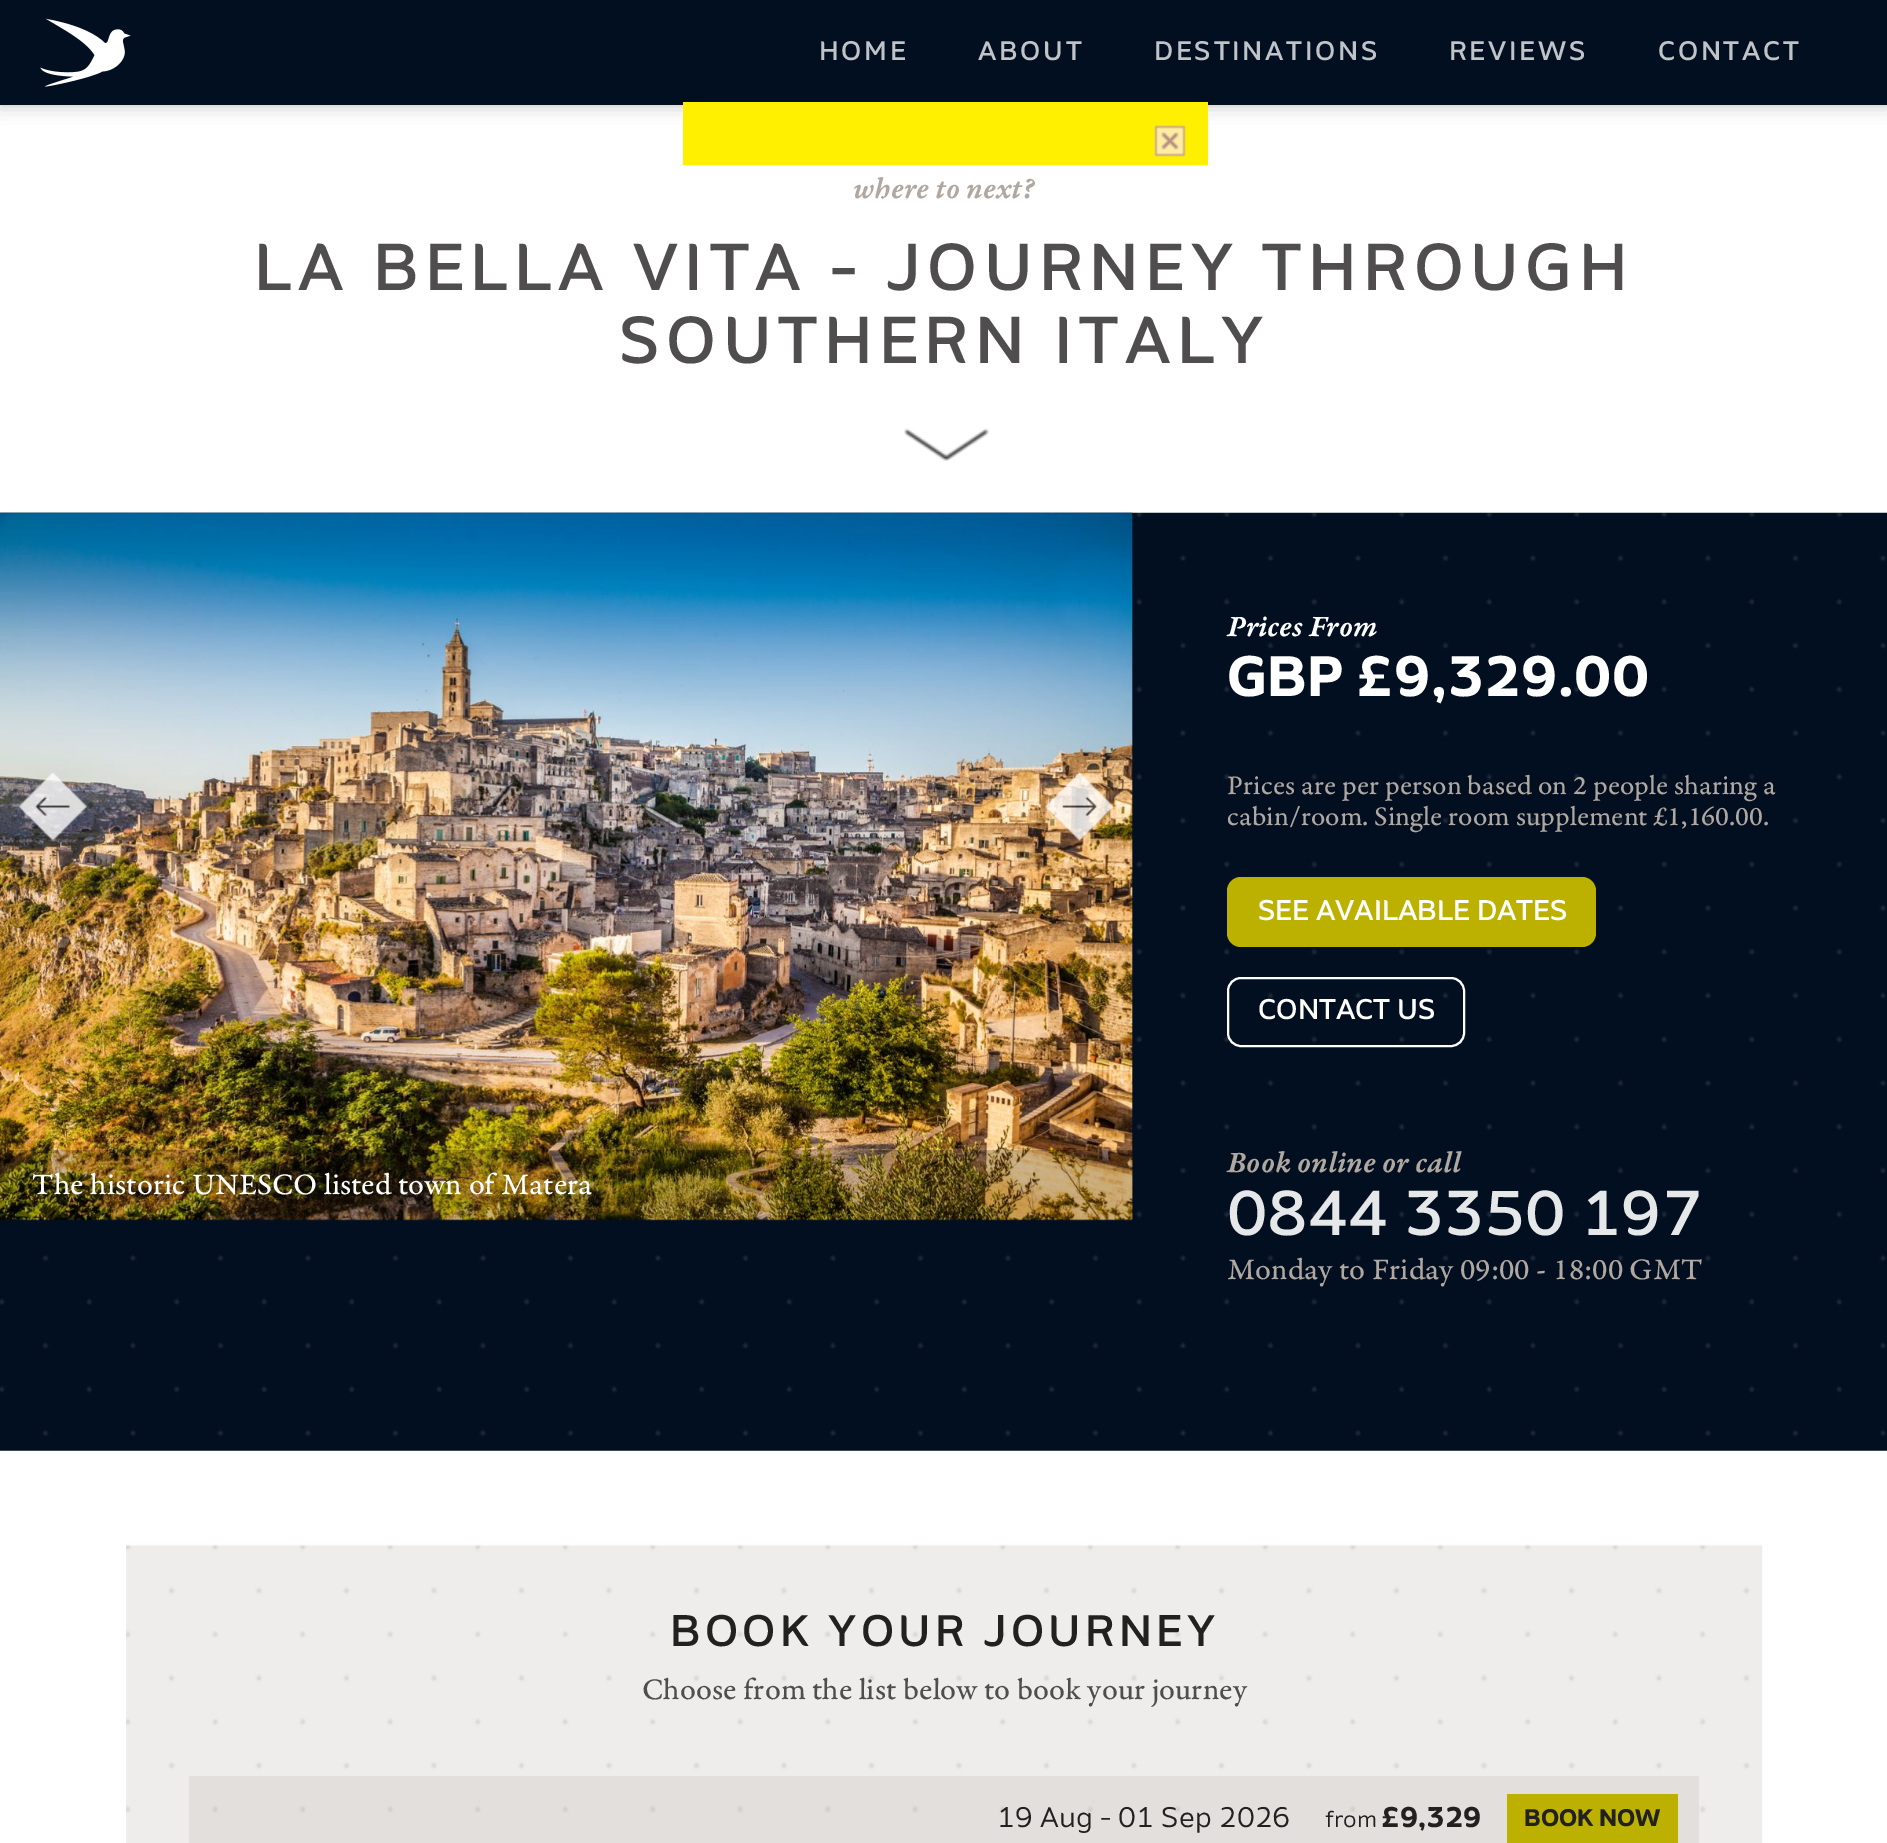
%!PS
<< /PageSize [1887 1843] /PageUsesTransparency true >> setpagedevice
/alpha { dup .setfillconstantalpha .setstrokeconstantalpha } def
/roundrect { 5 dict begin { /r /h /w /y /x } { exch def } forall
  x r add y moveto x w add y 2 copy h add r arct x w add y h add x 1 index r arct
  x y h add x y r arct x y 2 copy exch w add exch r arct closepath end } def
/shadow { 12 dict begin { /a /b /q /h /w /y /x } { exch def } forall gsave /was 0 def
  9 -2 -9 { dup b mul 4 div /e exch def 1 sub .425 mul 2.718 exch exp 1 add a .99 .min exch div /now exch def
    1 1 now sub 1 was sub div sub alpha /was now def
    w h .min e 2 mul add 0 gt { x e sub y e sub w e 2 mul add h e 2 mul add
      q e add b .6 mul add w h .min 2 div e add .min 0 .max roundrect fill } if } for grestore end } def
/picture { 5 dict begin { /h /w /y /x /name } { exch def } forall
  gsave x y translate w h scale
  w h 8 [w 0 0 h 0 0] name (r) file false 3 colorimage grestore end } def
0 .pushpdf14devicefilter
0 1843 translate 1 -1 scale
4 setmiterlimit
1 setgray
0 0 1887 1843 rectfill
0.137 0.129 0.125 setrgbcolor
0 0 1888 105 0 9 0.3 shadow
0.008 0.059 0.125 setrgbcolor
0 0 1887 105 rectfill
(img1.rgb) 40 18 91 69 picture
/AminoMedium-Regular [26.75 0 0 -26.75 0 0] selectfont
0.753 0.765 0.78 setrgbcolor
819 60 moveto 2.75 0 (HOME) ashow
978 60 moveto 2.75 0 (ABOUT) ashow
1154 60 moveto 2.75 0 (DESTINATIONS) ashow
1449 60 moveto 2.75 0 (REVIEWS) ashow
1658 60 moveto 2.75 0 (CONTACT) ashow
/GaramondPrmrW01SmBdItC-SemiBold [31.5 0 0 -31.5 0 0] selectfont
0.686 0.655 0.627 setrgbcolor
853 198 moveto (where to next?) show
/AminoMedium-Regular [66.15 0 0 -66.15 0 0] selectfont
0.31 0.302 0.302 setrgbcolor
254 290 moveto 6.6 0 (LA BELLA VITA - JOURNEY THROUGH) ashow
619 363 moveto 6.6 0 (SOUTHERN ITALY) ashow
(img2.rgb) 904 428 85 33 picture
(img3.rgb) 0 512 1887 939 picture
(img6.rgb) 0 512 1133 709 picture
(img4.rgb) 18 772 70 69 picture
(img5.rgb) 1045 772 69 69 picture
0.2 alpha
0 setgray
0 1150 1132 70 rectfill
/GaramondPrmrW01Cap-Regular [31.5 0 0 -31.5 0 0] selectfont
1 alpha
1 setgray
32 1194 moveto (The historic UNESCO listed town of Matera) show
/GaramondPrmrW01SmBdItC-SemiBold [31.5 0 0 -31.5 0 0] selectfont
1227 636 moveto (Prices From) show
/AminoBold-Regular [56.75 0 0 -56.75 0 0] selectfont
1227 696 moveto (GBP £9,329.00) show
/GaramondPrmrW01Cap-Regular [28.4 0 0 -28.4 0 0] selectfont
0.686 0.655 0.627 setrgbcolor
1227 794 moveto (Prices are per person based on 2 people sharing a) show
1227 825 moveto (cabin/room. Single room supplement £1,160.00.) show
0.741 0.694 0 setrgbcolor
1227 877 369 70 14 roundrect fill
/AminoMedium-Regular [28.4 0 0 -28.4 0 0] selectfont
1 setgray
1258 920 moveto (SEE AVAILABLE DATES) show
2 setlinewidth
1228 978 236 68 13 roundrect stroke
1258 1019 moveto (CONTACT US) show
/GaramondPrmrW01SmBdItC-SemiBold [31.5 0 0 -31.5 0 0] selectfont
0.686 0.655 0.627 setrgbcolor
1227 1172 moveto (Book online or call) show
/AminoMedium-Regular [63 0 0 -63 0 0] selectfont
0.902 0.906 0.914 setrgbcolor
1227 1235 moveto (0844 3350 197) show
/GaramondPrmrW01Cap-Regular [31.5 0 0 -31.5 0 0] selectfont
0.686 0.655 0.627 setrgbcolor
1227 1279 moveto (Monday to Friday 09:00 - 18:00 GMT) show
(img7.rgb) 126 1544 1637 299 picture
/AminoMedium-Regular [44.1 0 0 -44.1 0 0] selectfont
0.137 0.129 0.125 setrgbcolor
670 1646 moveto 4.4 0 (BOOK YOUR JOURNEY) ashow
/GaramondPrmrW01Cap-Regular [31.5 0 0 -31.5 0 0] selectfont
0.31 0.302 0.302 setrgbcolor
642 1699 moveto (Choose from the list below to book your journey) show
0.2 alpha
0.686 0.655 0.627 setrgbcolor
189 1776 1510 67 rectfill
/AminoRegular-Regular [28.4 0 0 -28.4 0 0] selectfont
1 alpha
0.137 0.129 0.125 setrgbcolor
997 1827 moveto (19 Aug - 01 Sep 2026) show
/AminoRegular-Regular [23 0 0 -23 0 0] selectfont
1325 1827 moveto (from) show
/AminoBold-Regular [28.4 0 0 -28.4 0 0] selectfont
1381 1827 moveto (£9,329) show
0.741 0.694 0 setrgbcolor
1507 1794 171 49 rectfill
/AminoBold-Regular [24 0 0 -24 0 0] selectfont
0.137 0.129 0.125 setrgbcolor
1524 1826 moveto (BOOK NOW) show
1 0.941 0 setrgbcolor
683 102 525 63 rectfill
(img8.rgb) 1154 125 32 32 picture
.poppdf14devicefilter showpage
